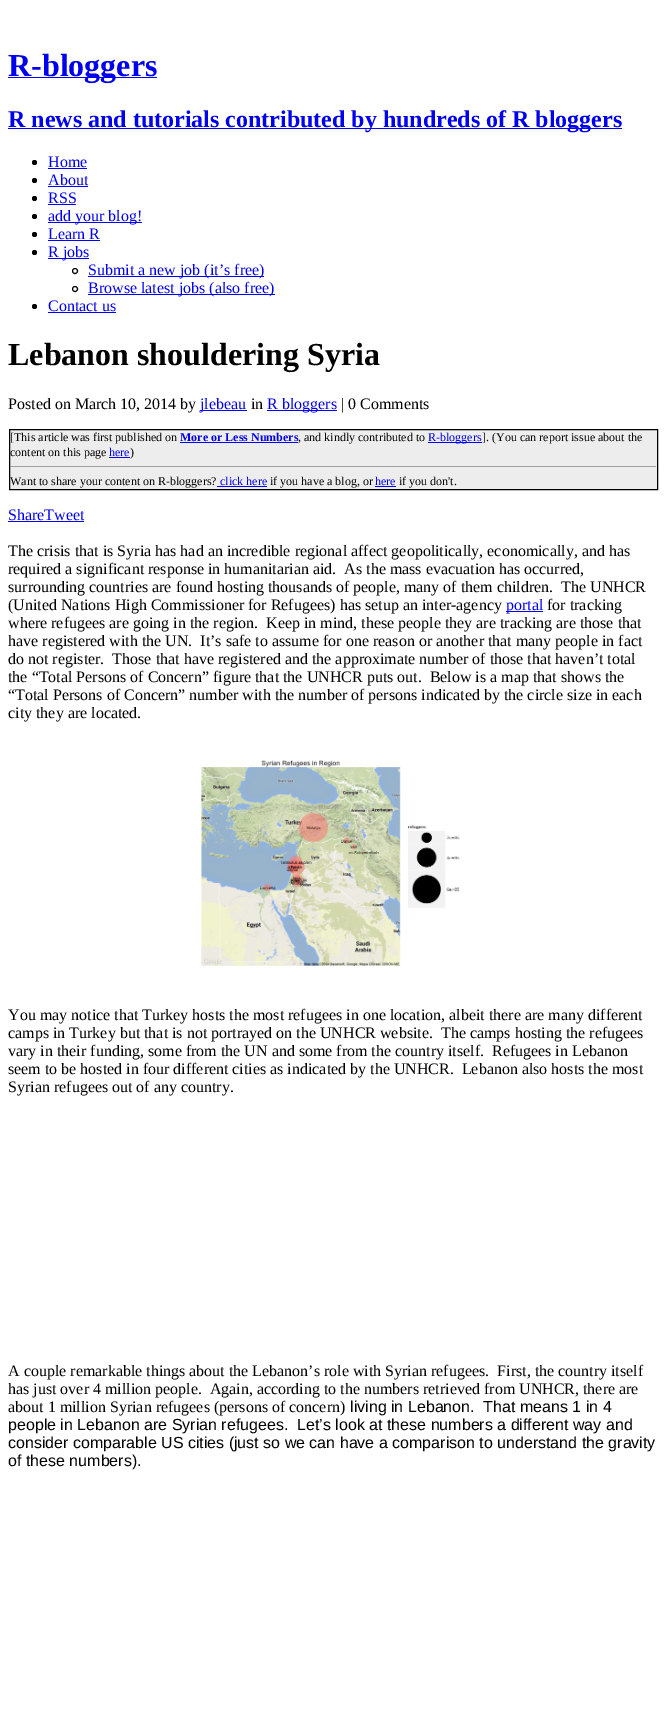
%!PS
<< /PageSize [667 1712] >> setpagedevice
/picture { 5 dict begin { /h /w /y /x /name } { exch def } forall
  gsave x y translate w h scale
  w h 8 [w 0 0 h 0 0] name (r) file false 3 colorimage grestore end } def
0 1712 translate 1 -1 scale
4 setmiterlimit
1 setgray
0 0 667 1712 rectfill
0 0 0.933 setrgbcolor
8 77 149 1 rectfill
/LiberationSerif-Bold [32 0 0 -32 0 0] selectfont
8 76 moveto (R-bloggers) show
8 128 614 1 rectfill
/LiberationSerif-Bold [24 0 0 -24 0 0] selectfont
8 127 moveto (R news and tutorials contributed by hundreds of R bloggers) show
0 setgray
newpath 34.5 162.5 2.5 0 360 arc closepath fill
/LiberationSerif-Regular [16 0 0 -16 0 0] selectfont
0 0 0.933 setrgbcolor
48 167 moveto (Home) show
48 168 39 1 rectfill
0 setgray
newpath 34.5 180.5 2.5 0 360 arc closepath fill
0 0 0.933 setrgbcolor
48 185 moveto (About) show
48 186 40 1 rectfill
0 setgray
newpath 34.5 198.5 2.5 0 360 arc closepath fill
0 0 0.933 setrgbcolor
48 203 moveto (RSS) show
48 204 28 1 rectfill
0 setgray
newpath 34.5 216.5 2.5 0 360 arc closepath fill
0 0 0.933 setrgbcolor
48 222 94 1 rectfill
48 221 moveto (add your blog!) show
0 setgray
newpath 34.5 234.5 2.5 0 360 arc closepath fill
0 0 0.933 setrgbcolor
48 239 moveto (Learn R) show
48 240 52 1 rectfill
0 setgray
newpath 34.5 252.5 2.5 0 360 arc closepath fill
0 0 0.933 setrgbcolor
48 258 41 1 rectfill
48 257 moveto (R jobs) show
0 setgray
newpath 75 271 2.5 0 360 arc closepath stroke
0 0 0.933 setrgbcolor
88 276 176 1 rectfill
88 275 moveto (Submit a new job \(it’s free\)) show
0 setgray
newpath 75 289 2.5 0 360 arc closepath stroke
0 0 0.933 setrgbcolor
88 294 187 1 rectfill
88 293 moveto (Browse latest jobs \(also free\)) show
0 setgray
newpath 34.5 306.5 2.5 0 360 arc closepath fill
0 0 0.933 setrgbcolor
48 311 moveto (Contact us) show
48 312 68 1 rectfill
/LiberationSerif-Bold [32 0 0 -32 0 0] selectfont
0 setgray
8 365 moveto (Lebanon shouldering Syria) show
/LiberationSerif-Regular [16 0 0 -16 0 0] selectfont
8 409 moveto (Posted on March 10, 2014 by) show
0 0 0.933 setrgbcolor
200 410 47 1 rectfill
200 409 moveto (jlebeau) show
0 setgray
251 409 moveto (in) show
0 0 0.933 setrgbcolor
267 410 70 1 rectfill
267 409 moveto (R bloggers) show
0 setgray
341 409 moveto (| 0 Comments) show
0.929 setgray
newpath 9.5 429.5 moveto 657.5 429.5 lineto 657.5 489.5 lineto 9.5 489.5 lineto closepath gsave fill grestore
0 setgray
stroke
/LiberationSerif-Regular [12 0 0 -12 0 0] selectfont
10 441 moveto ([This article was first published on) show
/LiberationSerif-Bold [12 0 0 -12 0 0] selectfont
0 0 0.933 setrgbcolor
180 441 moveto (More or Less Numbers) show
180 442 118 1 rectfill
/LiberationSerif-Regular [12 0 0 -12 0 0] selectfont
0 setgray
298 441 moveto (, and kindly contributed to) show
0 0 0.933 setrgbcolor
428 442 54 1 rectfill
428 441 moveto (R-bloggers) show
0 setgray
482 441 moveto (]. \(You can report issue about the) show
10 456 moveto (content on this page) show
0 0 0.933 setrgbcolor
109 456 moveto (here) show
109 457 21 1 rectfill
0 setgray
130 456 moveto (\)) show
0.624 setgray
10 466 647 1 rectfill
0.933 setgray
656 466 1 2 rectfill
0.624 setgray
10 466 1 2 rectfill
0 setgray
10 485 moveto (Want to share your content on R-bloggers?) show
0 0 0.933 setrgbcolor
220 485 moveto (click here) show
217 486 50 1 rectfill
0 setgray
270 485 moveto (if you have a blog, or) show
0 0 0.933 setrgbcolor
375 485 moveto (here) show
375 486 21 1 rectfill
0 setgray
399 485 moveto (if you don't.) show
/LiberationSerif-Regular [16 0 0 -16 0 0] selectfont
0 0 0.933 setrgbcolor
8 520 moveto (ShareTweet) show
8 521 76 1 rectfill
0 setgray
8 556 moveto (The crisis that is Syria has had an incredible regional affect geopolitically, economically, and has) show
8 574 moveto (required a significant response in humanitarian aid.  As the mass evacuation has occurred,) show
8 592 moveto (surrounding countries are found hosting thousands of people, many of them children.  The UNHCR) show
8 610 moveto (\(United Nations High Commissioner for Refugees\) has setup an inter-agency) show
0 0 0.933 setrgbcolor
506 611 37 1 rectfill
506 610 moveto (portal) show
0 setgray
547 610 moveto (for tracking) show
8 628 moveto (where refugees are going in the region.  Keep in mind, these people they are tracking are those that) show
8 646 moveto (have registered with the UN.  It’s safe to assume for one reason or another that many people in fact) show
8 664 moveto (do not register.  Those that have registered and the approximate number of those that haven’t total) show
8 682 moveto (the “Total Persons of Concern” figure that the UNHCR puts out.  Below is a map that shows the) show
8 700 moveto (“Total Persons of Concern” number with the number of persons indicated by the circle size in each) show
8 718 moveto (city they are located.) show
(img1.rgb) 201 760 259 206 picture
8 1020 moveto (You may notice that Turkey hosts the most refugees in one location, albeit there are many different) show
8 1038 moveto (camps in Turkey but that is not portrayed on the UNHCR website.  The camps hosting the refugees) show
8 1056 moveto (vary in their funding, some from the UN and some from the country itself.  Refugees in Lebanon) show
8 1074 moveto (seem to be hosted in four different cities as indicated by the UNHCR.  Lebanon also hosts the most) show
8 1092 moveto (Syrian refugees out of any country.) show
8 1376 moveto (A couple remarkable things about the Lebanon’s role with Syrian refugees.  First, the country itself) show
8 1394 moveto (has just over 4 million people.  Again, according to the numbers retrieved from UNHCR, there are) show
8 1412 moveto (about 1 million Syrian refugees \(persons of concern\)) show
/LiberationSans-Regular [16 0 0 -16 0 0] selectfont
350 1412 moveto (living in Lebanon.  That means 1 in 4) show
8 1430 moveto (people in Lebanon are Syrian refugees.  Let’s look at these numbers a different way and) show
8 1448 moveto (consider comparable US cities \(just so we can have a comparison to understand the gravity) show
8 1466 moveto (of these numbers\).) show
showpage
